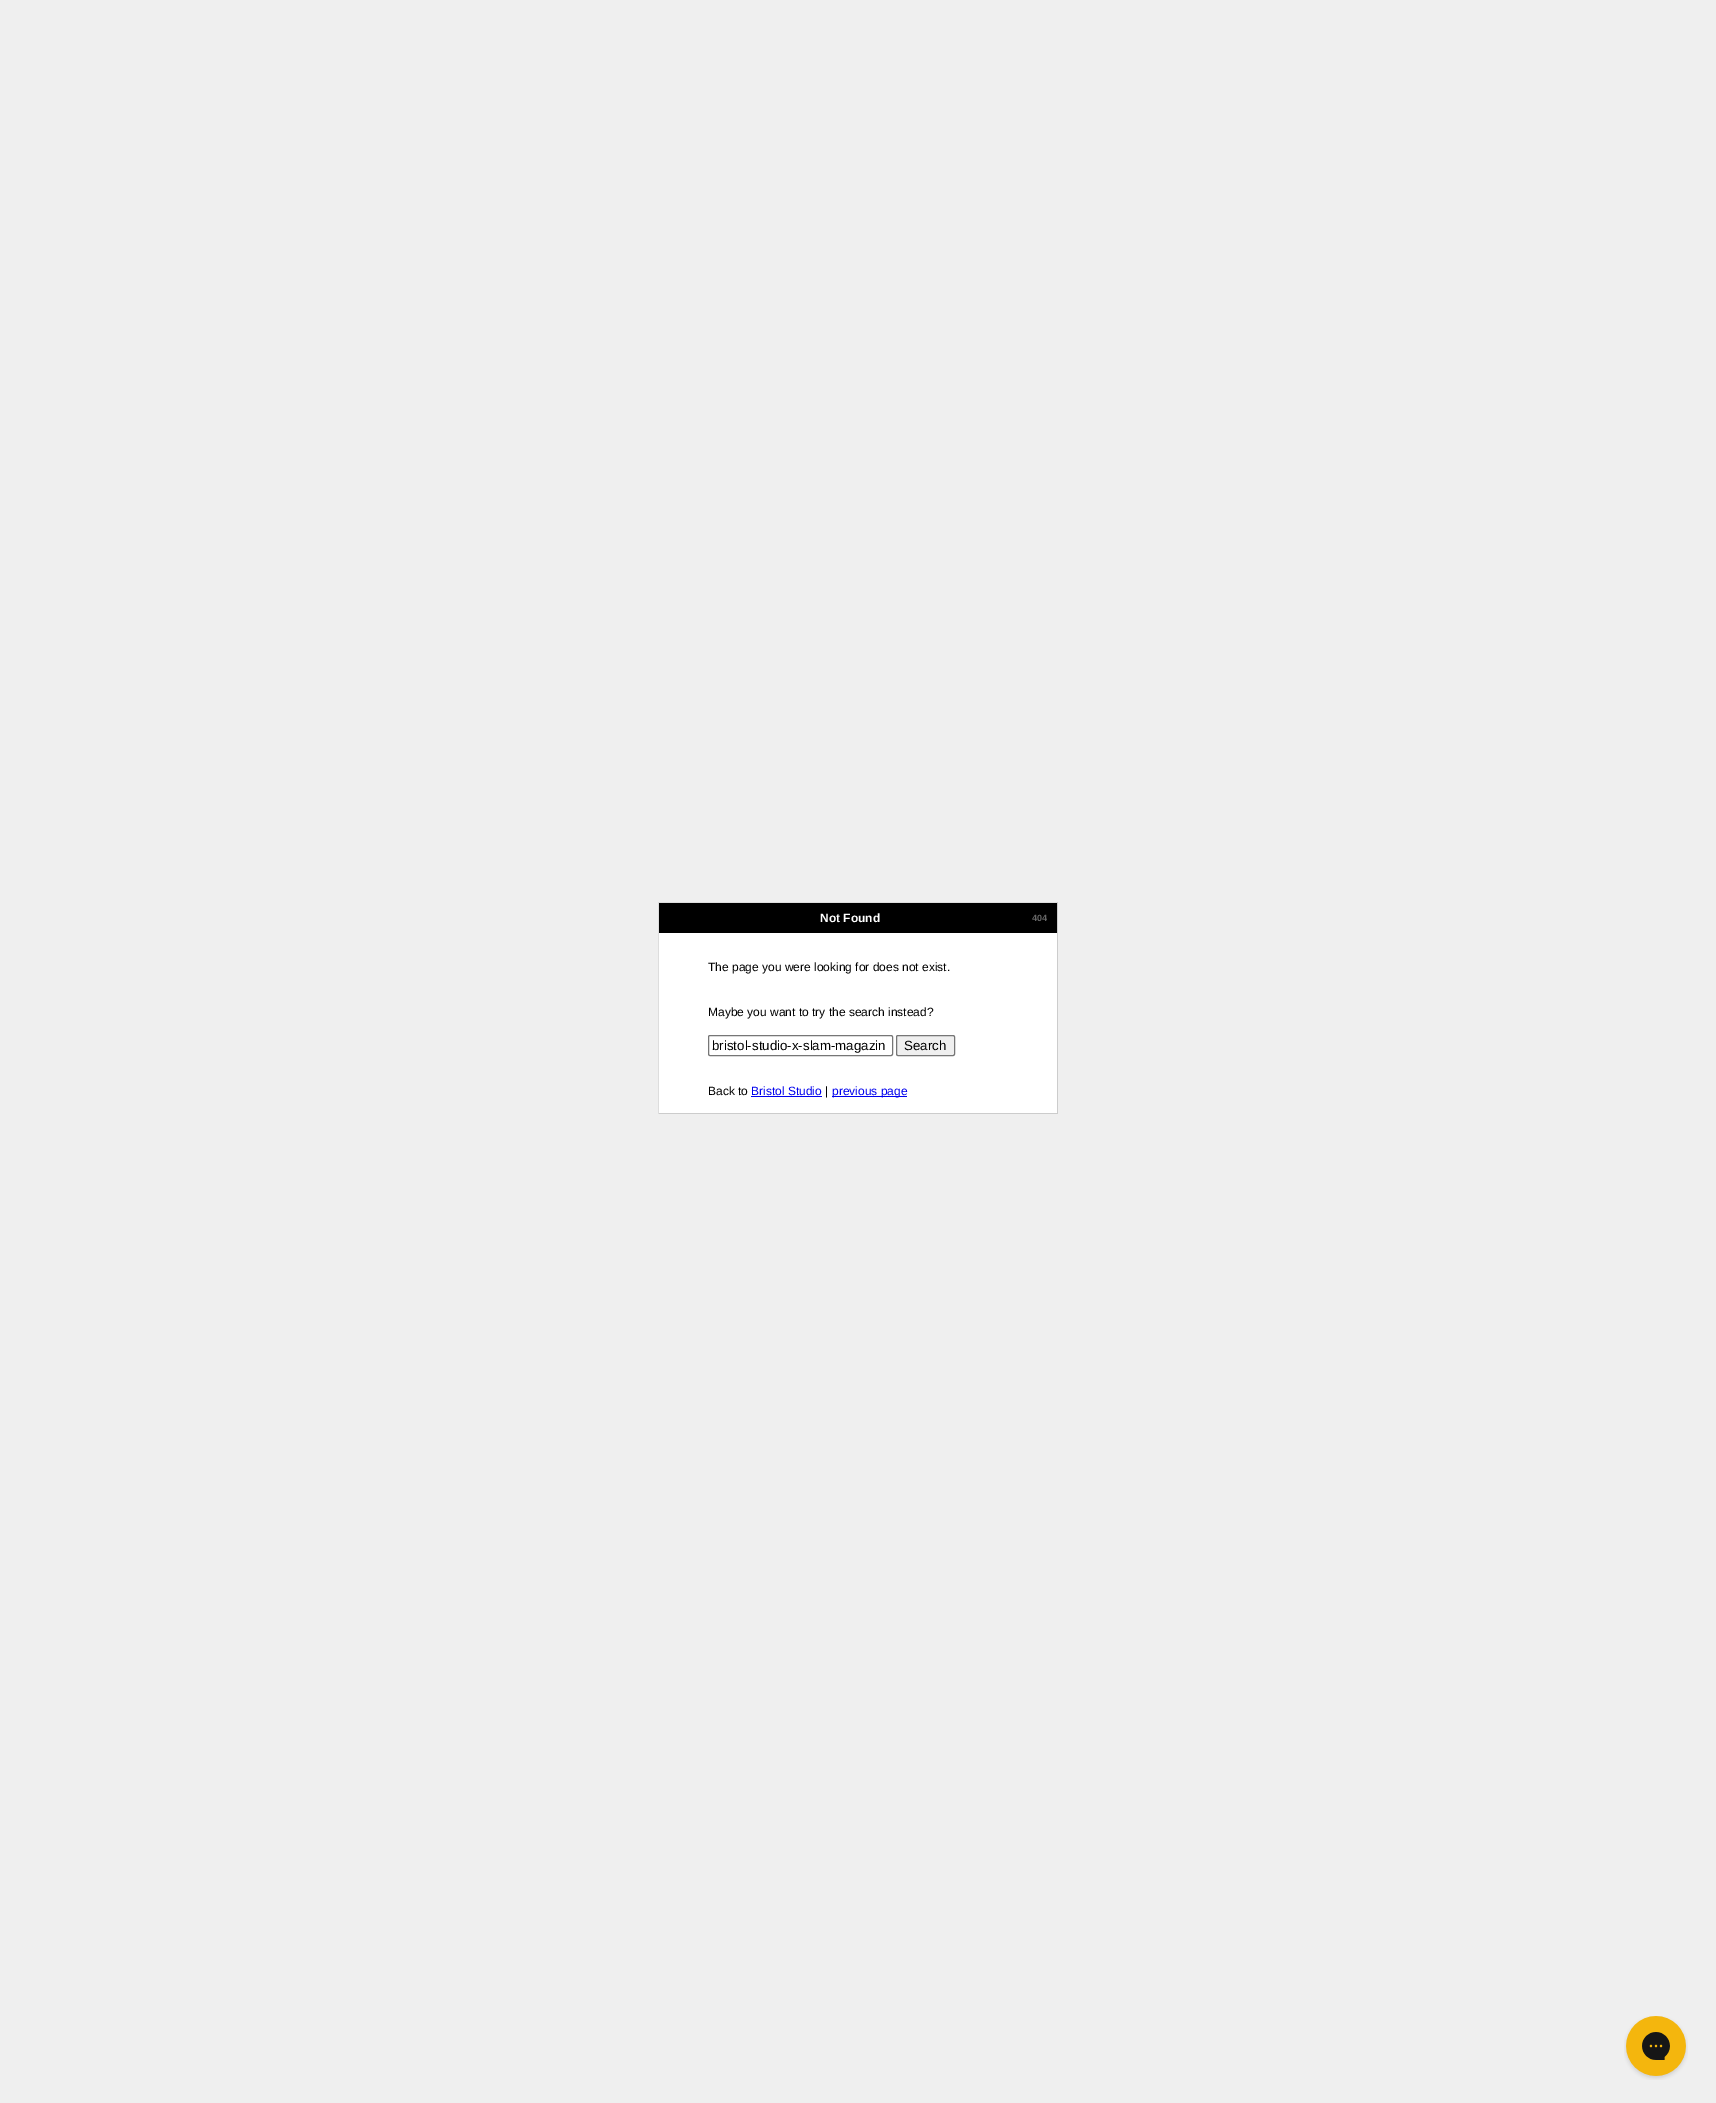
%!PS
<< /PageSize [1716 2103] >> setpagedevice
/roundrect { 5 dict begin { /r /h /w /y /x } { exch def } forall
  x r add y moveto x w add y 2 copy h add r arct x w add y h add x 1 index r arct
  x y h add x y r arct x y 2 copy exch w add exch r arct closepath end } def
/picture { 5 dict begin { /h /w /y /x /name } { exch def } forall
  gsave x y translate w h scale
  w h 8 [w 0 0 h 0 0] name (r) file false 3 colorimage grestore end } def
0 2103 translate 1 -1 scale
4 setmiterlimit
0.937 setgray
0 0 1716 2103 rectfill
1 setgray
659 933 398 180 rectfill
0.867 setgray
658 902 400 1 rectfill
0.8 setgray
1057 902 1 212 rectfill
658 1113 400 1 rectfill
0.867 setgray
658 902 1 212 rectfill
0 setgray
659 903 398 30 rectfill
/LiberationSans-Bold [12 0 0 -12 0 0] selectfont
1 setgray
820 922 moveto (Not Found) show
/LiberationSans-Bold [9 0 0 -9 0 0] selectfont
0.4 setgray
1032 921 moveto (404) show
/LiberationSans-Regular [12 0 0 -12 0 0] selectfont
0 setgray
708 971 moveto (The page you were looking for does not exist.) show
708 1016 moveto (Maybe you want to try the search instead?) show
0.463 setgray
708.5 1035.5 184 20 1.5 roundrect stroke
/LiberationSans-Regular [13.3 0 0 -13.3 0 0] selectfont
0 setgray
712 1050 moveto (bristol-studio-x-slam-magazin) show
0.937 setgray
896.5 1035.5 58 20 1.5 roundrect gsave fill grestore
0.463 setgray
stroke
0 setgray
904 1050 moveto (Search) show
/LiberationSans-Regular [12 0 0 -12 0 0] selectfont
708 1095 moveto (Back to) show
0 0 0.933 setrgbcolor
751 1095 moveto (Bristol Studio) show
751 1096 71 1 rectfill
0 setgray
825 1095 moveto (|) show
0 0 0.933 setrgbcolor
832 1096 75 1 rectfill
832 1095 moveto (previous page) show
(img1.rgb) 1624 2016 64 64 picture
showpage
